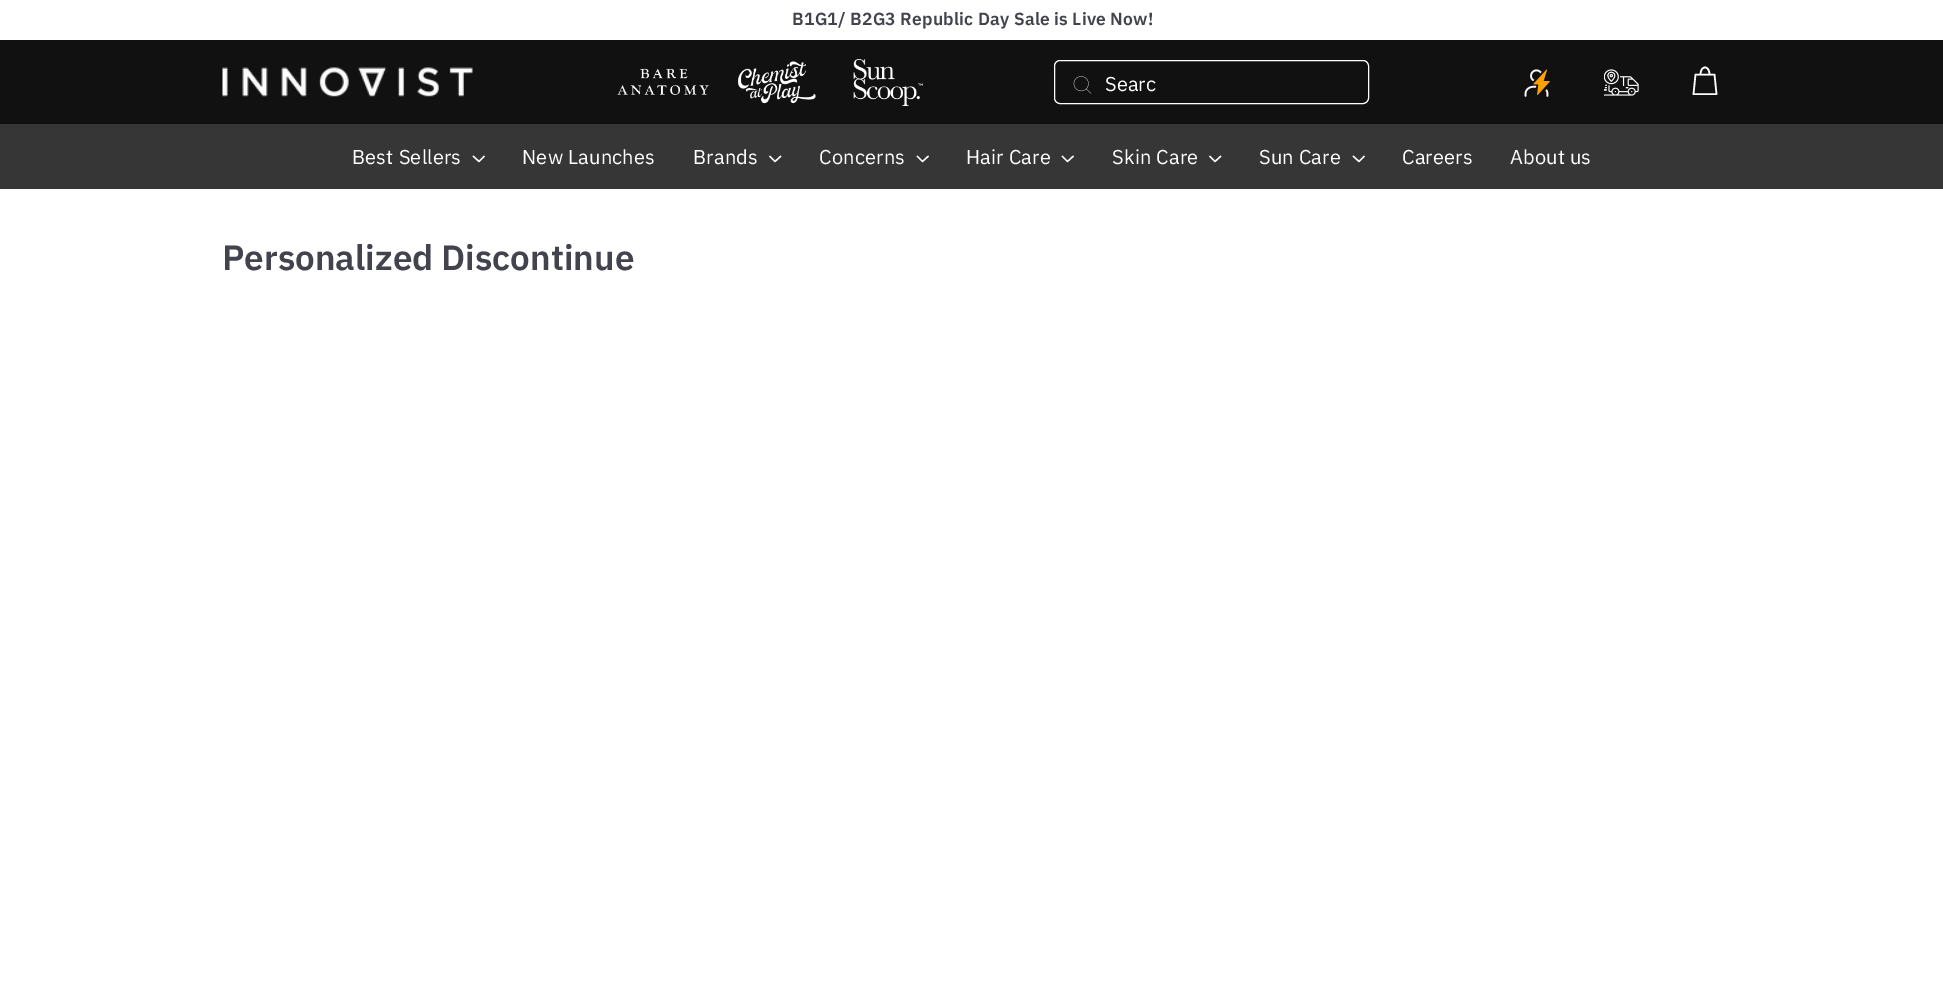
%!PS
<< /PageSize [1943 1008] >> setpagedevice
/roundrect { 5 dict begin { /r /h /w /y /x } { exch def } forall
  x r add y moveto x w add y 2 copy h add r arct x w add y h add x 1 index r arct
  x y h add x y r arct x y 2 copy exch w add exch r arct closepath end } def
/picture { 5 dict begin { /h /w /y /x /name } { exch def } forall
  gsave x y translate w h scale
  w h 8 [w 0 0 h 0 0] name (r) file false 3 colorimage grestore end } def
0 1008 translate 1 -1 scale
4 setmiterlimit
1 setgray
0 0 1943 1008 rectfill
/IBMPlexSans-SemiBold [17.5 0 0 -17.5 0 0] selectfont
0.259 0.263 0.302 setrgbcolor
792 25 moveto 0.2 0 (B1G1/ B2G3 Republic Day Sale is Live Now!) ashow
0.067 setgray
0 40 1943 84 rectfill
(img1.rgb) 222 67 251 30 picture
(img2.rgb) 617 68 92 27 picture
(img3.rgb) 738 61 78 43 picture
(img4.rgb) 853 59 70 47 picture
(img5.rgb) 1073 76 19 18 picture
1 setgray
1054.5 60.5 314 43 5.5 roundrect stroke
/IBMPlexSans-Regular [20 0 0 -20 0 0] selectfont
1105 91 moveto (Searc) show
(img6.rgb) 1524 69 26 28 picture
(img7.rgb) 1604 69 35 27 picture
1.6 setlinewidth
1 setlinejoin
newpath 1700.5 74.5 moveto 1700.5 65 1709.5 65 1709.5 74.5 curveto 1695.5 74.5 moveto 1714.5 74.5 lineto 1716.5 94 lineto 1693.5 94 lineto closepath stroke
0.212 setgray
0 124 1943 65 rectfill
1 setgray
352 164 moveto 0.2 0 (Best Sellers) ashow
1.3 setlinewidth
newpath 473 156 moveto 479 161.5 lineto 484.5 156 lineto stroke
522 164 moveto 0.2 0 (New Launches) ashow
693 164 moveto 0.2 0 (Brands) ashow
newpath 769.5 156 moveto 775 161.5 lineto 781 156 lineto stroke
819 164 moveto 0.2 0 (Concerns) ashow
newpath 917 156 moveto 922.5 161.5 lineto 928.5 156 lineto stroke
966 164 moveto 0.2 0 (Hair Care) ashow
newpath 1062 156 moveto 1067.5 161.5 lineto 1073.5 156 lineto stroke
1112 164 moveto 0.2 0 (Skin Care) ashow
newpath 1209.5 156 moveto 1215 161.5 lineto 1221 156 lineto stroke
1259 164 moveto 0.2 0 (Sun Care) ashow
newpath 1353 156 moveto 1359 161.5 lineto 1364.5 156 lineto stroke
1402 164 moveto 0.2 0 (Careers) ashow
1510 164 moveto 0.2 0 (About us) ashow
/IBMPlexSans-SemiBold [35 0 0 -35 0 0] selectfont
0.259 0.263 0.302 setrgbcolor
222 270 moveto (Personalized Discontinue) show
showpage
